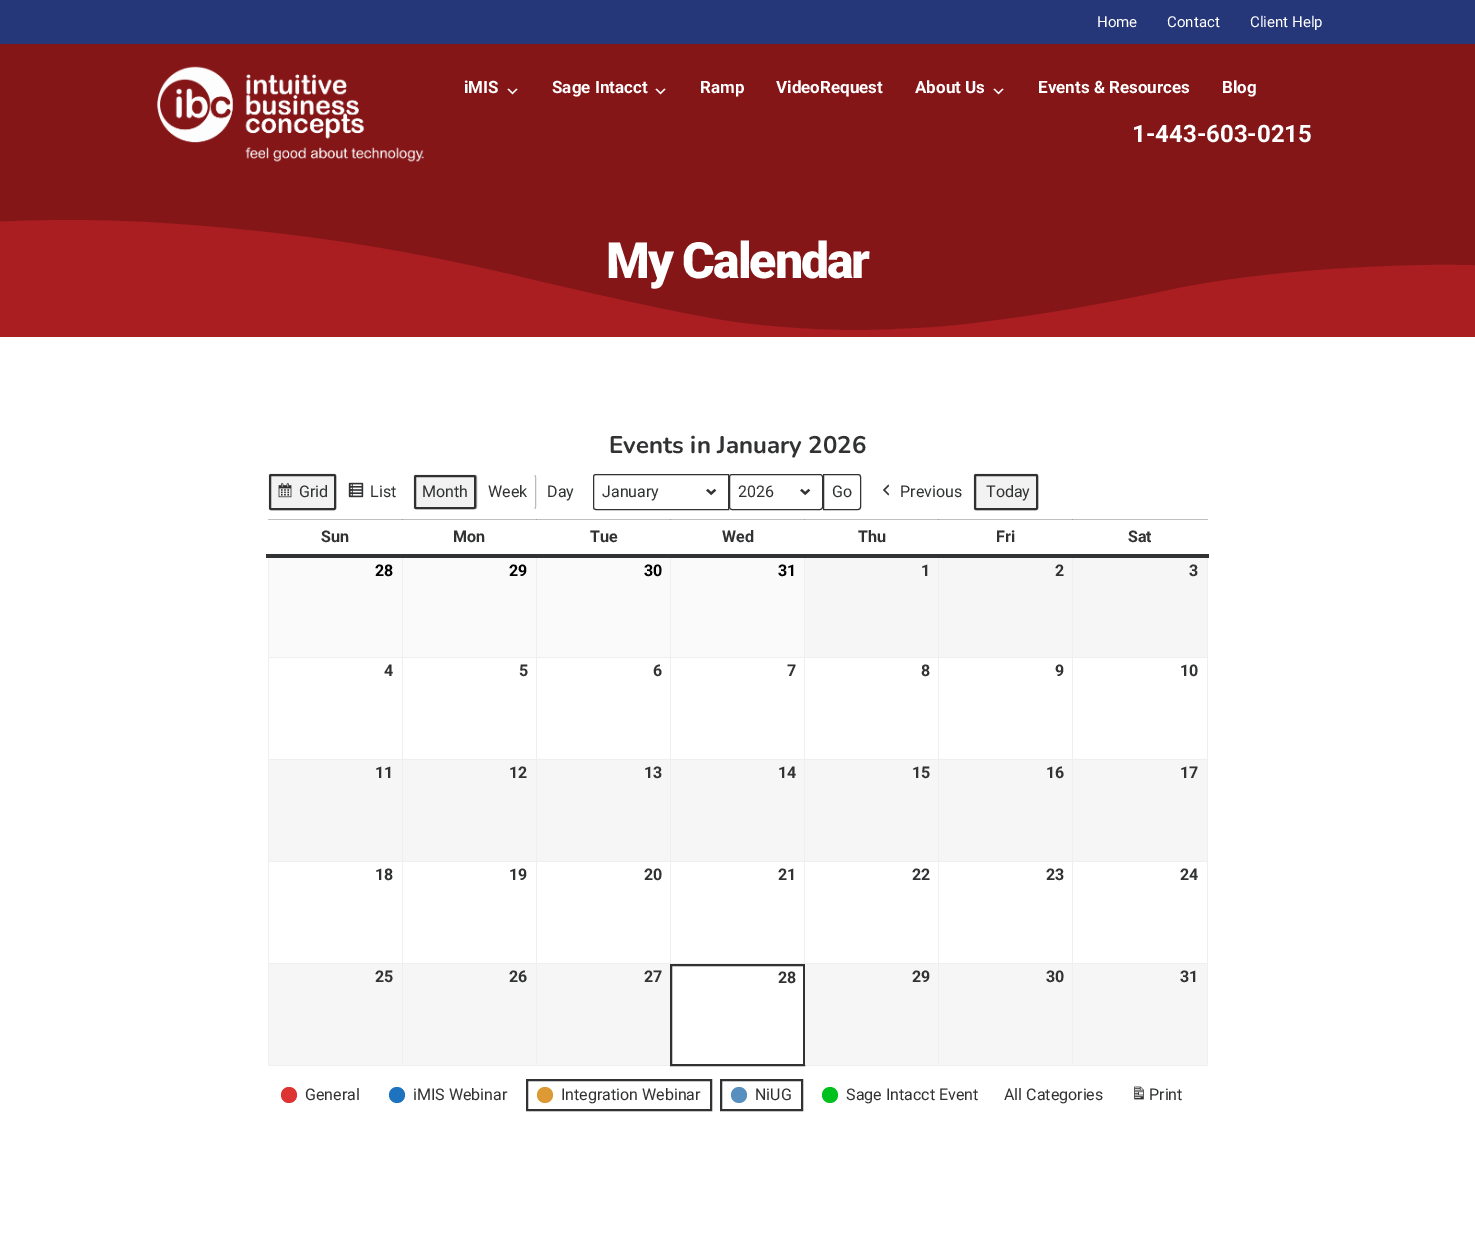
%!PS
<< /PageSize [1475 1246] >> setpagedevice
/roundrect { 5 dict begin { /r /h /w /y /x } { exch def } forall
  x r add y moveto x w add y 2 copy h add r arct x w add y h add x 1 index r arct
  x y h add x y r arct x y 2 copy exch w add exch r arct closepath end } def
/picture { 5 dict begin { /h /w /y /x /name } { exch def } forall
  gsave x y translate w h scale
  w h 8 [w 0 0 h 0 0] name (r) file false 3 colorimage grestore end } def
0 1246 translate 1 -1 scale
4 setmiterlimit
1 setgray
0 0 1475 1246 rectfill
0.753 setgray
268 519 940 1 rectfill
0.627 setgray
402 519 1 1 rectfill
536 519 1 1 rectfill
670 519 1 1 rectfill
804 519 1 1 rectfill
938 519 1 1 rectfill
0.145 0.216 0.475 setrgbcolor
0 0 1475 44 rectfill
/Roboto-Regular [15 0 0 -15 0 0] selectfont
1 setgray
1097 27 moveto (Home) show
1167 27 moveto (Contact) show
1250 27 moveto (Client Help) show
0.522 0.086 0.094 setrgbcolor
0 44 1475 287 rectfill
(img1.rgb) 157 66 268 96 picture
/Roboto-Bold [17 0 0 -17 0 0] selectfont
1 setgray
464 93 moveto (iMIS) show
(img2.rgb) 507 88 11 7 picture
552 93 moveto (Sage Intacct) show
(img2.rgb) 655 88 11 7 picture
700 93 moveto (Ramp) show
776 93 moveto (VideoRequest) show
915 93 moveto (About Us) show
(img2.rgb) 993 88 11 7 picture
1038 93 moveto (Events & Resources) show
1222 93 moveto (Blog) show
/Roboto-Bold [24 0 0 -24 0 0] selectfont
1132 142 moveto (1-443-603-0215) show
0.667 0.118 0.133 setrgbcolor
newpath 896 329 moveto 850 332 791 329 742 323 curveto 694 317 598 295 538 281 curveto 383 243 265 229 145 222 curveto 97 220 46 218 -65 225 curveto -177 232 -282 256 -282 256 curveto -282 337 lineto 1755 337 lineto 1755 301 lineto 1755 301 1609 263 1433 265 curveto 1353 266 1244 273 1160 292 curveto 1117 301 1054 313 998 320 curveto 942 328 917 328 896 329 curveto closepath fill
/Roboto-Black [50 0 0 -50 0 0] selectfont
1 setgray
606 278 moveto -2 0 (My Calendar) ashow
/Nunito-Bold [24 0 0 -24 0 0] selectfont
0.192 0.196 0.2 setrgbcolor
609 453 moveto (Events in January 2026) show
0.949 setgray
268 473 69 38 3 roundrect fill
(img3.rgb) 278 483 14 15 picture
0.184 0.188 0.188 setrgbcolor
2 setlinewidth
270 475 65 34 1 roundrect stroke
/Roboto-Regular [16 0 0 -16 0 0] selectfont
0.192 0.196 0.2 setrgbcolor
299 497 moveto (Grid) show
(img4.rgb) 348 482 16 16 picture
370 497 moveto (List) show
0.949 setgray
413 474 64 36 3 roundrect fill
0.698 setgray
1 setlinewidth
newpath 476 475 moveto 476 475.5 476.5 476.5 476.5 477 curveto 476.5 507 lineto 476.5 507.5 476 508.5 476 509 curveto stroke
0.184 0.188 0.188 setrgbcolor
2 setlinewidth
415 476 60 32 1 roundrect stroke
0.192 0.196 0.2 setrgbcolor
422 497 moveto (Month) show
0.733 setgray
1 setlinewidth
newpath 535 475 moveto 535 475.5 535.5 476.5 535.5 477 curveto 535.5 507 lineto 535.5 507.5 535 508.5 535 509 curveto stroke
0.192 0.196 0.2 setrgbcolor
488 497 moveto (Week) show
547 497 moveto (Day) show
(img5.rgb) 706 488 11 8 picture
newpath 596 474.5 moveto 728.5 474.5 lineto 728.5 509.5 lineto 596 509.5 lineto 594.5 509.5 593.5 508.5 593.5 507 curveto 593.5 477 lineto 593.5 475.5 594.5 474.5 596 474.5 curveto closepath stroke
602 497 moveto (January) show
(img5.rgb) 800 488 11 8 picture
729.5 474.5 93 35 2.5 roundrect stroke
738 497 moveto (2026) show
newpath 823.5 474.5 moveto 858 474.5 lineto 859.5 474.5 860.5 475.5 860.5 477 curveto 860.5 507 lineto 860.5 508.5 859.5 509.5 858 509.5 curveto 823.5 509.5 lineto closepath stroke
832 497 moveto (Go) show
(img6.rgb) 883 484 7 12 picture
900 497 moveto (Previous) show
0.949 setgray
973 473 66 38 3 roundrect fill
0.184 0.188 0.188 setrgbcolor
2 setlinewidth
975 475 62 34 1 roundrect stroke
0.192 0.196 0.2 setrgbcolor
986 497 moveto (Today) show
0.937 setgray
1072 657 136 1 rectfill
1072 759 136 1 rectfill
1072 861 136 1 rectfill
1072 963 136 1 rectfill
1207 963 1 103 rectfill
1072 1065 136 1 rectfill
1072 963 1 103 rectfill
938 963 135 1 rectfill
1072 861 1 103 rectfill
938 861 135 1 rectfill
1072 759 1 103 rectfill
938 759 135 1 rectfill
1072 657 1 103 rectfill
938 657 135 1 rectfill
938 1065 135 1 rectfill
938 963 1 103 rectfill
804 963 135 1 rectfill
938 861 1 103 rectfill
804 861 135 1 rectfill
938 759 1 103 rectfill
804 759 135 1 rectfill
938 657 1 103 rectfill
804 657 135 1 rectfill
804 861 1 103 rectfill
670 861 135 1 rectfill
804 759 1 103 rectfill
670 759 135 1 rectfill
804 657 1 103 rectfill
670 657 135 1 rectfill
536 963 135 1 rectfill
670 963 135 1 rectfill
670 861 1 103 rectfill
536 861 135 1 rectfill
670 759 1 103 rectfill
536 759 135 1 rectfill
670 657 1 103 rectfill
536 657 135 1 rectfill
536 1065 135 1 rectfill
536 963 1 103 rectfill
402 963 135 1 rectfill
536 861 1 103 rectfill
402 861 135 1 rectfill
536 759 1 103 rectfill
402 759 135 1 rectfill
536 657 1 103 rectfill
402 657 135 1 rectfill
402 1065 135 1 rectfill
402 963 1 103 rectfill
268 963 135 1 rectfill
402 861 1 103 rectfill
268 861 135 1 rectfill
402 759 1 103 rectfill
268 759 135 1 rectfill
402 657 1 103 rectfill
268 657 135 1 rectfill
402 555 1 103 rectfill
536 555 1 103 rectfill
670 555 1 103 rectfill
804 555 1 103 rectfill
938 555 1 103 rectfill
1072 555 1 103 rectfill
268 1065 135 1 rectfill
268 963 1 103 rectfill
268 861 1 103 rectfill
268 759 1 103 rectfill
268 555 1 205 rectfill
1207 861 1 103 rectfill
1207 759 1 103 rectfill
1207 555 1 205 rectfill
0.192 0.196 0.2 setrgbcolor
266 554 943 4 rectfill
/Roboto-Bold [16 0 0 -16 0 0] selectfont
321 542 moveto (Sun) show
453 542 moveto (Mon) show
590 542 moveto (Tue) show
722 542 moveto (Wed) show
858 542 moveto (Thu) show
996 542 moveto (Fri) show
0.627 setgray
1072 519 1 1 rectfill
0.192 0.196 0.2 setrgbcolor
1128 542 moveto (Sat) show
0.98 setgray
269 558 133 99 rectfill
0 setgray
375 576 moveto (28) show
0.98 setgray
403 558 133 99 rectfill
0 setgray
509 576 moveto (29) show
0.98 setgray
537 558 133 99 rectfill
0 setgray
644 576 moveto (30) show
0.98 setgray
671 558 133 99 rectfill
0 setgray
778 576 moveto (31) show
0.965 setgray
805 558 133 99 rectfill
0.192 0.196 0.2 setrgbcolor
921 576 moveto (1) show
0.965 setgray
939 558 133 99 rectfill
0.192 0.196 0.2 setrgbcolor
1055 576 moveto (2) show
0.965 setgray
1073 558 134 99 rectfill
0.192 0.196 0.2 setrgbcolor
1189 576 moveto (3) show
384 676 moveto (4) show
519 676 moveto (5) show
653 676 moveto (6) show
787 676 moveto (7) show
921 676 moveto (8) show
1055 676 moveto (9) show
1180 676 moveto (10) show
0.965 setgray
269 760 133 101 rectfill
0.192 0.196 0.2 setrgbcolor
375 778 moveto (11) show
0.965 setgray
403 760 133 101 rectfill
0.192 0.196 0.2 setrgbcolor
509 778 moveto (12) show
0.965 setgray
537 760 133 101 rectfill
0.192 0.196 0.2 setrgbcolor
644 778 moveto (13) show
0.965 setgray
671 760 133 101 rectfill
0.192 0.196 0.2 setrgbcolor
778 778 moveto (14) show
0.965 setgray
805 760 133 101 rectfill
0.192 0.196 0.2 setrgbcolor
912 778 moveto (15) show
0.965 setgray
939 760 133 101 rectfill
0.192 0.196 0.2 setrgbcolor
1046 778 moveto (16) show
0.965 setgray
1073 760 134 101 rectfill
0.192 0.196 0.2 setrgbcolor
1180 778 moveto (17) show
375 880 moveto (18) show
509 880 moveto (19) show
644 880 moveto (20) show
778 880 moveto (21) show
912 880 moveto (22) show
1046 880 moveto (23) show
1180 880 moveto (24) show
0.965 setgray
269 964 133 101 rectfill
0.192 0.196 0.2 setrgbcolor
375 982 moveto (25) show
0.965 setgray
403 964 133 101 rectfill
0.192 0.196 0.2 setrgbcolor
509 982 moveto (26) show
0.965 setgray
537 964 133 101 rectfill
0.192 0.196 0.2 setrgbcolor
644 982 moveto (27) show
0.937 setgray
804 1065 135 1 rectfill
0.192 0.196 0.2 setrgbcolor
671 965 133 100 rectstroke
778 983 moveto (28) show
0.965 setgray
805 964 133 101 rectfill
0.192 0.196 0.2 setrgbcolor
912 982 moveto (29) show
0.965 setgray
939 964 133 101 rectfill
0.192 0.196 0.2 setrgbcolor
1046 982 moveto (30) show
0.965 setgray
1073 964 134 101 rectfill
0.192 0.196 0.2 setrgbcolor
1180 982 moveto (31) show
0.867 0.2 0.2 setrgbcolor
newpath 289 1095 8 0 360 arc closepath fill
/Roboto-Regular [16 0 0 -16 0 0] selectfont
0.192 0.196 0.2 setrgbcolor
305 1100 moveto (General) show
0.118 0.451 0.745 setrgbcolor
newpath 397 1095 8 0 360 arc closepath fill
0.192 0.196 0.2 setrgbcolor
413 1100 moveto (iMIS Webinar) show
527 1080 184 30 rectstroke
0.867 0.6 0.2 setrgbcolor
newpath 545 1095 8 0 360 arc closepath fill
0.192 0.196 0.2 setrgbcolor
561 1100 moveto (Integration Webinar) show
721 1080 81 30 rectstroke
0.341 0.561 0.749 setrgbcolor
newpath 739 1095 8 0 360 arc closepath fill
0.192 0.196 0.2 setrgbcolor
755 1100 moveto (NiUG) show
0 0.757 0.114 setrgbcolor
newpath 830 1095 8 0 360 arc closepath fill
0.192 0.196 0.2 setrgbcolor
846 1100 moveto (Sage Intacct Event) show
1004 1100 moveto (All Categories) show
(img7.rgb) 1134 1086 10 14 picture
1149 1100 moveto (Print) show
showpage
